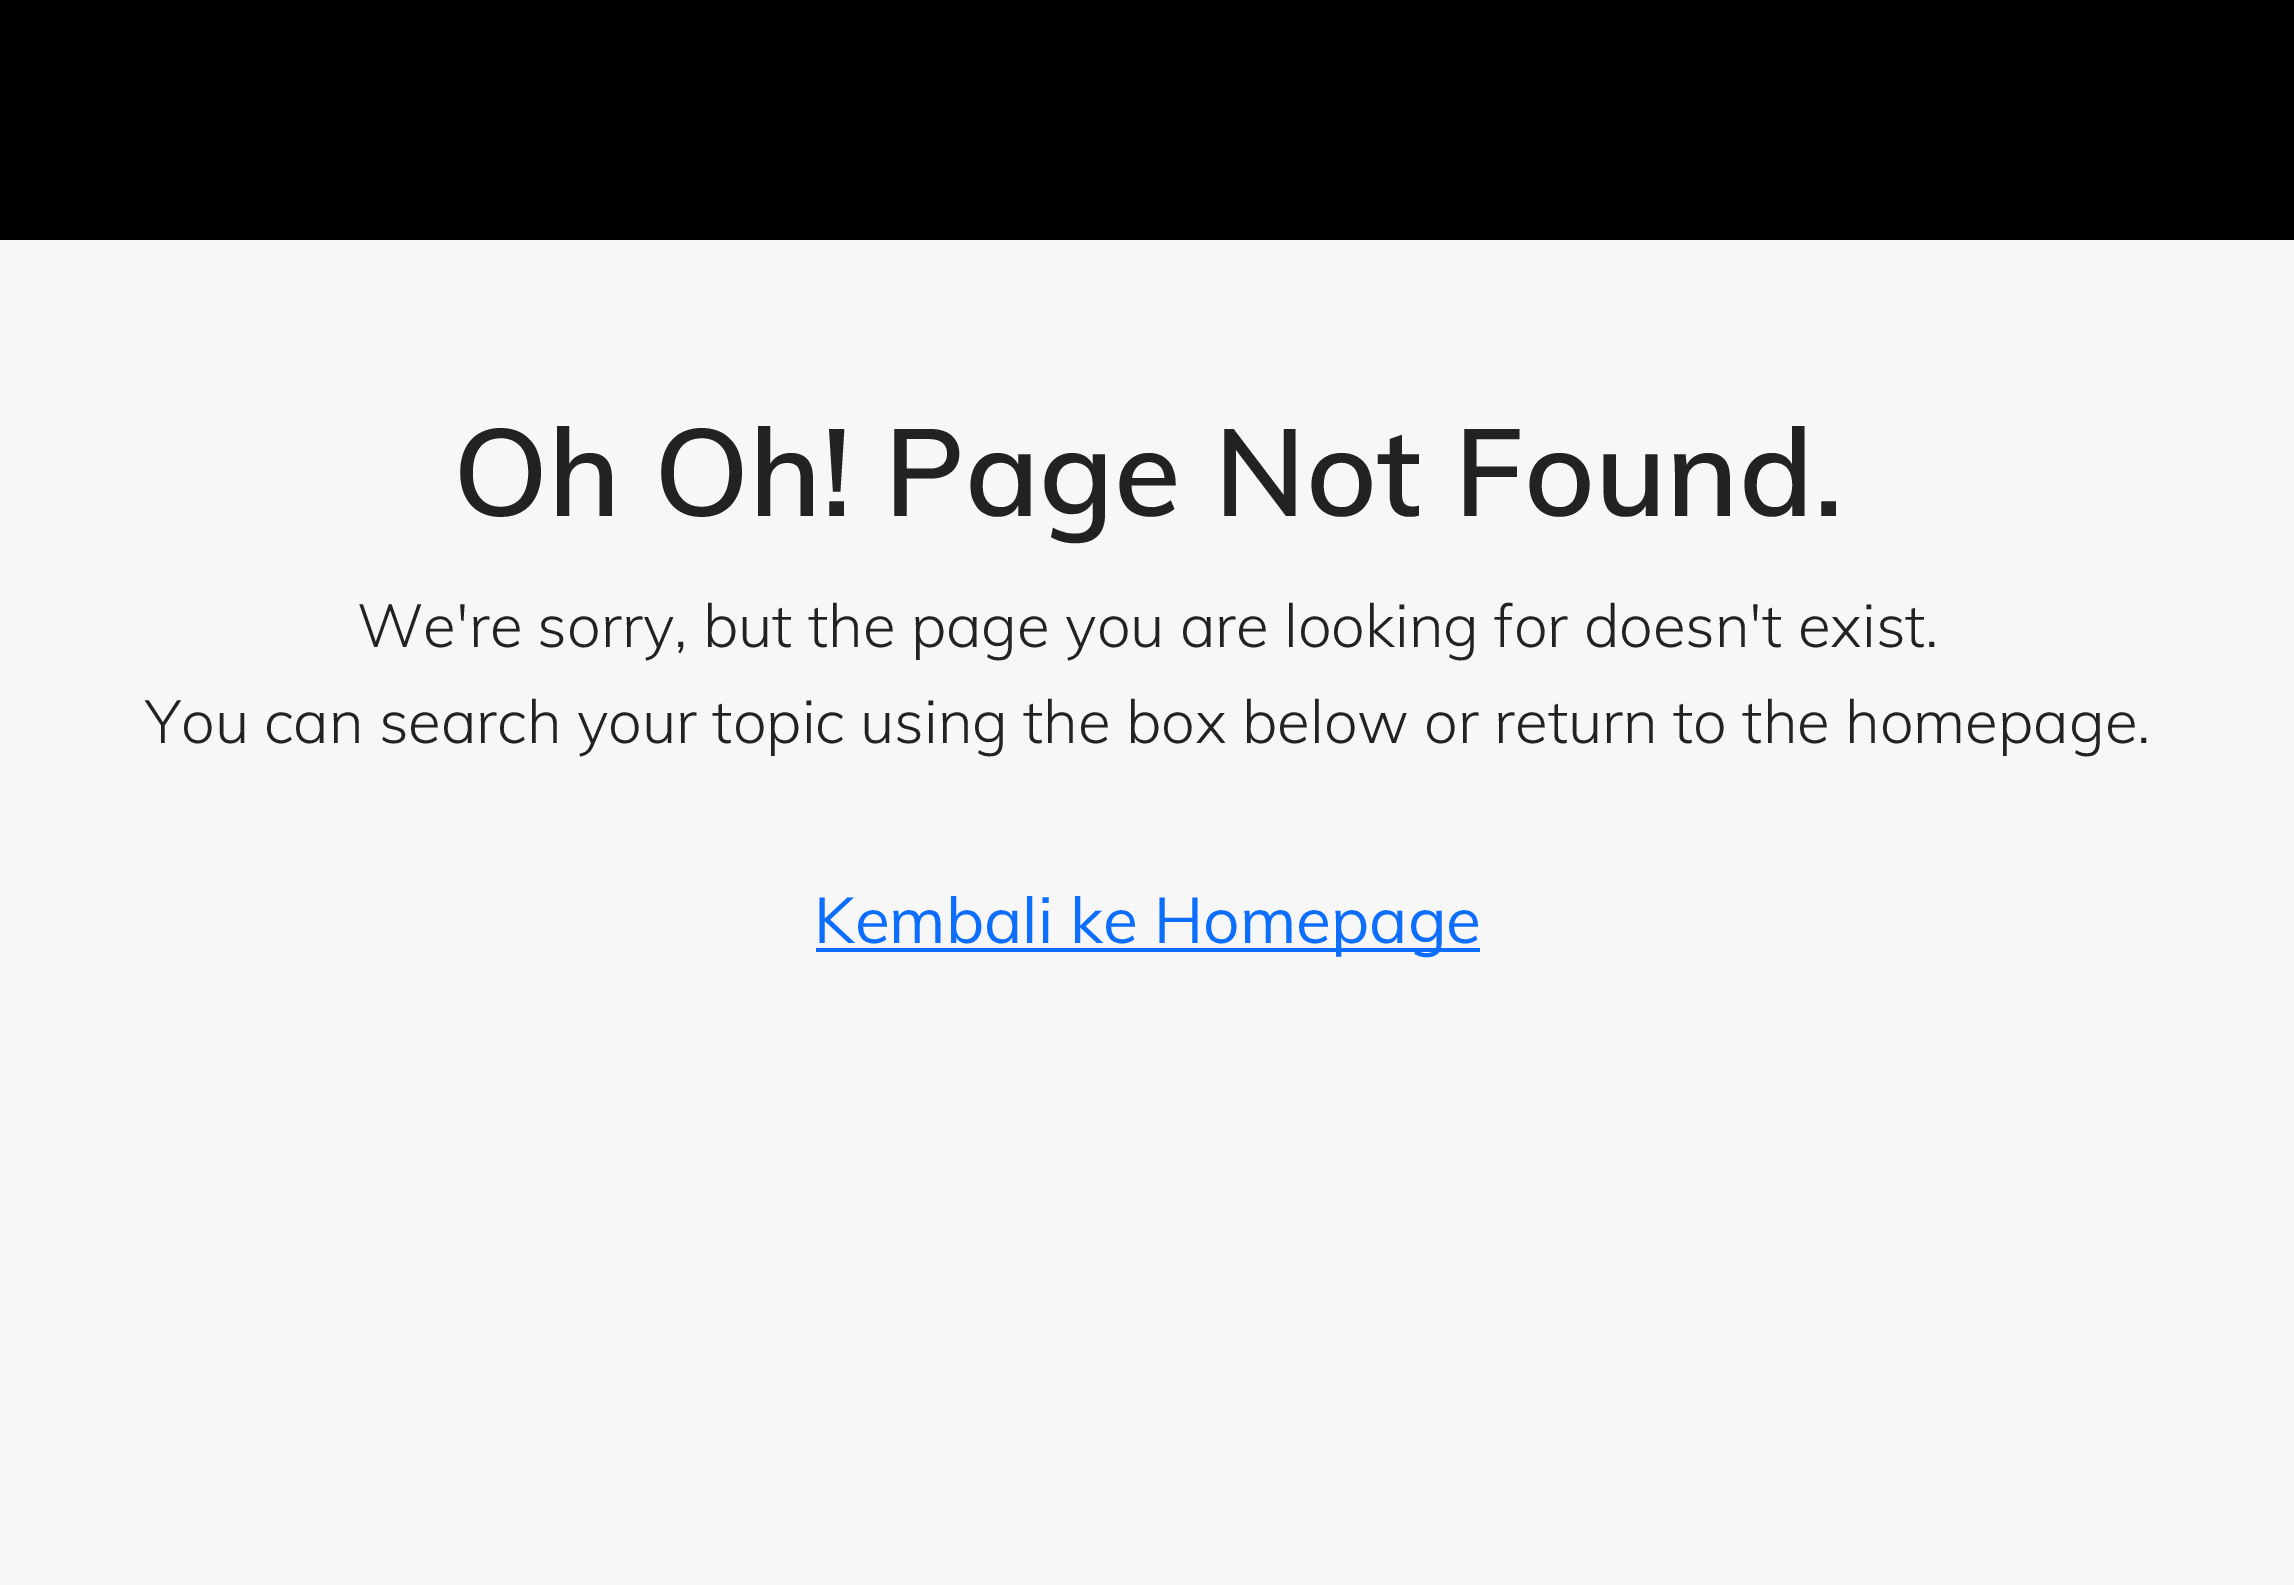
%!PS
<< /PageSize [2294 1585] >> setpagedevice
0 1585 translate 1 -1 scale
4 setmiterlimit
0.969 setgray
0 0 2294 1585 rectfill
0 setgray
0 0 2294 240 rectfill
/Muli-SemiBold [122.5 0 0 -122.5 0 0] selectfont
0.133 setgray
453 516 moveto (Oh Oh! Page Not Found.) show
/Muli-Light [60 0 0 -60 0 0] selectfont
357 647 moveto (We're sorry, but the page you are looking for doesn't exist.) show
145 743 moveto (You can search your topic using the box below or return to the homepage.) show
0.051 0.431 0.992 setrgbcolor
816 948 664 4 rectfill
/Muli-Regular [64 0 0 -64 0 0] selectfont
814 943 moveto (Kembali ke Homepage) show
showpage
